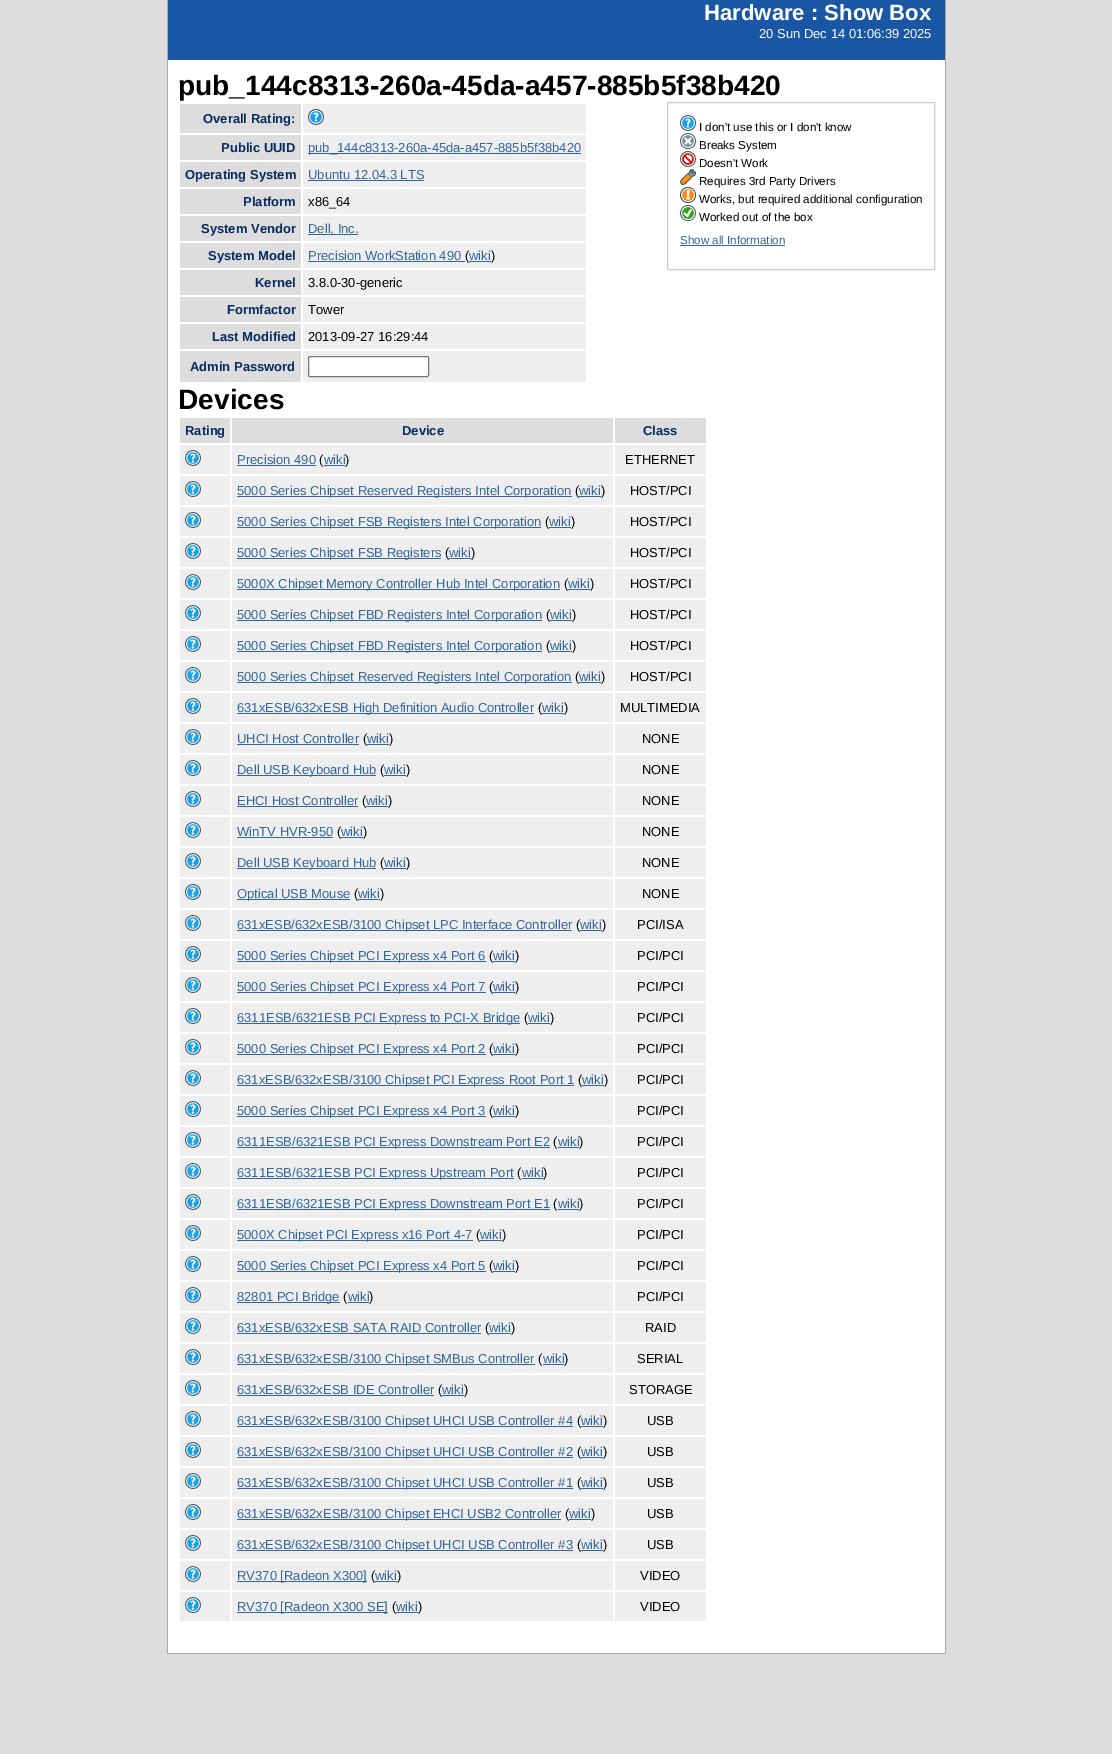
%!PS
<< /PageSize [1112 1754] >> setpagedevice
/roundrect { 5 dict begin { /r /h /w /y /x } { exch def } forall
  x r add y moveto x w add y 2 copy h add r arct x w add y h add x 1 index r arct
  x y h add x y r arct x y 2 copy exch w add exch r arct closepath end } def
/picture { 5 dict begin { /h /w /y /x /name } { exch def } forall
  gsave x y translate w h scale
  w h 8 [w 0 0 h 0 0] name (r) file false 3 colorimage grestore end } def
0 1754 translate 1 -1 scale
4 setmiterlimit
0.867 setgray
0 0 1112 1754 rectfill
0.098 0.337 0.639 setrgbcolor
168 0 777 60 rectfill
0.667 setgray
945 0 1 1654 rectfill
167 0 1 1633 rectfill
/LiberationSans-Bold [22.1 0 0 -22.1 0 0] selectfont
0.992 1 0.988 setrgbcolor
704 20 moveto (Hardware : Show Box) show
/LiberationSans-Regular [13 0 0 -13 0 0] selectfont
759 38 moveto (20 Sun Dec 14 01:06:39 2025) show
1 setgray
168 60 777 1593 rectfill
/LiberationSans-Bold [28.1 0 0 -28.1 0 0] selectfont
0 setgray
178 95 moveto (pub_144c8313-260a-45da-a457-885b5f38b420) show
0.867 setgray
180 104 121 29 rectfill
/LiberationSans-Bold [13 0 0 -13 0 0] selectfont
0.027 0.169 0.38 setrgbcolor
203 123 moveto (Overall Rating:) show
0.933 setgray
303 104 283 29 rectfill
(img1.rgb) 308 109 16 16 picture
0.867 setgray
180 135 121 25 rectfill
0.027 0.169 0.38 setrgbcolor
221 152 moveto (Public UUID) show
0.933 setgray
303 135 283 25 rectfill
0.2 0.4 0.6 setrgbcolor
308 153 273 1 rectfill
/LiberationSans-Regular [13 0 0 -13 0 0] selectfont
308 152 moveto (pub_144c8313-260a-45da-a457-885b5f38b420) show
0.867 setgray
180 162 121 25 rectfill
/LiberationSans-Bold [13 0 0 -13 0 0] selectfont
0.027 0.169 0.38 setrgbcolor
185 179 moveto (Operating System) show
0.933 setgray
303 162 283 25 rectfill
/LiberationSans-Regular [13 0 0 -13 0 0] selectfont
0.2 0.4 0.6 setrgbcolor
308 179 moveto (Ubuntu 12.04.3 LTS) show
308 180 116 1 rectfill
0.867 setgray
180 189 121 25 rectfill
/LiberationSans-Bold [13 0 0 -13 0 0] selectfont
0.027 0.169 0.38 setrgbcolor
243 206 moveto (Platform) show
0.933 setgray
303 189 283 25 rectfill
/LiberationSans-Regular [13 0 0 -13 0 0] selectfont
0 setgray
308 206 moveto (x86_64) show
0.867 setgray
180 216 121 25 rectfill
/LiberationSans-Bold [13 0 0 -13 0 0] selectfont
0.027 0.169 0.38 setrgbcolor
201 233 moveto (System Vendor) show
0.933 setgray
303 216 283 25 rectfill
0.2 0.4 0.6 setrgbcolor
308 234 50 1 rectfill
/LiberationSans-Regular [13 0 0 -13 0 0] selectfont
308 233 moveto (Dell, Inc.) show
0.867 setgray
180 243 121 25 rectfill
/LiberationSans-Bold [13 0 0 -13 0 0] selectfont
0.027 0.169 0.38 setrgbcolor
208 260 moveto (System Model) show
0.933 setgray
303 243 283 25 rectfill
/LiberationSans-Regular [13 0 0 -13 0 0] selectfont
0.2 0.4 0.6 setrgbcolor
308 260 moveto (Precision WorkStation 490) show
308 261 157 1 rectfill
0 setgray
465 260 moveto (\() show
0.2 0.4 0.6 setrgbcolor
469 260 moveto (wiki) show
469 261 22 1 rectfill
0 setgray
491 260 moveto (\)) show
0.867 setgray
180 270 121 25 rectfill
/LiberationSans-Bold [13 0 0 -13 0 0] selectfont
0.027 0.169 0.38 setrgbcolor
255 287 moveto (Kernel) show
0.933 setgray
303 270 283 25 rectfill
/LiberationSans-Regular [13 0 0 -13 0 0] selectfont
0 setgray
308 287 moveto (3.8.0-30-generic) show
0.867 setgray
180 297 121 25 rectfill
/LiberationSans-Bold [13 0 0 -13 0 0] selectfont
0.027 0.169 0.38 setrgbcolor
227 314 moveto (Formfactor) show
0.933 setgray
303 297 283 25 rectfill
/LiberationSans-Regular [13 0 0 -13 0 0] selectfont
0 setgray
308 314 moveto (Tower) show
0.867 setgray
180 324 121 25 rectfill
/LiberationSans-Bold [13 0 0 -13 0 0] selectfont
0.027 0.169 0.38 setrgbcolor
212 341 moveto (Last Modified) show
0.933 setgray
303 324 283 25 rectfill
/LiberationSans-Regular [13 0 0 -13 0 0] selectfont
0 setgray
308 341 moveto (2013-09-27 16:29:44) show
0.867 setgray
180 351 121 31 rectfill
/LiberationSans-Bold [13 0 0 -13 0 0] selectfont
0.027 0.169 0.38 setrgbcolor
190 371 moveto (Admin Password) show
0.933 setgray
303 351 283 31 rectfill
1 setgray
308.5 356.5 120 20 1.5 roundrect gsave fill grestore
0.463 setgray
stroke
0.8 setgray
667.5 102.5 267 167 rectstroke
(img2.rgb) 680 115 16 16 picture
/LiberationSans-Regular [11.6 0 0 -11.6 0 0] selectfont
0 setgray
699 131 moveto (I don't use this or I don't know) show
(img3.rgb) 680 133 16 16 picture
699 149 moveto (Breaks System) show
(img4.rgb) 680 151 16 16 picture
699 167 moveto (Doesn't Work) show
(img5.rgb) 680 169 16 16 picture
699 185 moveto (Requires 3rd Party Drivers) show
(img6.rgb) 680 187 16 16 picture
699 203 moveto (Works, but required additional configuration) show
(img7.rgb) 680 205 16 16 picture
699 221 moveto (Worked out of the box) show
0.2 0.4 0.6 setrgbcolor
680 244 moveto (Show all Information) show
680 245 105 1 rectfill
/LiberationSans-Bold [28.1 0 0 -28.1 0 0] selectfont
0 setgray
178 409 moveto (Devices) show
0.867 setgray
180 418 50 25 rectfill
/LiberationSans-Bold [13 0 0 -13 0 0] selectfont
0.027 0.169 0.38 setrgbcolor
185 435 moveto (Rating) show
0.867 setgray
232 418 381 25 rectfill
0.027 0.169 0.38 setrgbcolor
402 435 moveto (Device) show
0.867 setgray
615 418 91 25 rectfill
0.027 0.169 0.38 setrgbcolor
643 435 moveto (Class) show
0.933 setgray
180 445 50 29 rectfill
(img1.rgb) 185 450 16 16 picture
232 445 381 29 rectfill
/LiberationSans-Regular [13 0 0 -13 0 0] selectfont
0.2 0.4 0.6 setrgbcolor
237 464 moveto (Precision 490) show
237 465 79 1 rectfill
0 setgray
319 464 moveto (\() show
0.2 0.4 0.6 setrgbcolor
324 464 moveto (wiki) show
324 465 21 1 rectfill
0 setgray
345 464 moveto (\)) show
0.933 setgray
615 445 91 29 rectfill
0 setgray
625 464 moveto (ETHERNET) show
0.933 setgray
180 476 50 29 rectfill
(img1.rgb) 185 481 16 16 picture
232 476 381 29 rectfill
0.2 0.4 0.6 setrgbcolor
237 496 335 1 rectfill
237 495 moveto (5000 Series Chipset Reserved Registers Intel Corporation) show
0 setgray
575 495 moveto (\() show
0.2 0.4 0.6 setrgbcolor
579 495 moveto (wiki) show
579 496 22 1 rectfill
0 setgray
601 495 moveto (\)) show
0.933 setgray
615 476 91 29 rectfill
0 setgray
630 495 moveto (HOST/PCI) show
0.933 setgray
180 507 50 29 rectfill
(img1.rgb) 185 512 16 16 picture
232 507 381 29 rectfill
0.2 0.4 0.6 setrgbcolor
237 527 304 1 rectfill
237 526 moveto (5000 Series Chipset FSB Registers Intel Corporation) show
0 setgray
545 526 moveto (\() show
0.2 0.4 0.6 setrgbcolor
549 526 moveto (wiki) show
549 527 22 1 rectfill
0 setgray
571 526 moveto (\)) show
0.933 setgray
615 507 91 29 rectfill
0 setgray
630 526 moveto (HOST/PCI) show
0.933 setgray
180 538 50 29 rectfill
(img1.rgb) 185 543 16 16 picture
232 538 381 29 rectfill
0.2 0.4 0.6 setrgbcolor
237 558 204 1 rectfill
237 557 moveto (5000 Series Chipset FSB Registers) show
0 setgray
445 557 moveto (\() show
0.2 0.4 0.6 setrgbcolor
449 557 moveto (wiki) show
449 558 22 1 rectfill
0 setgray
471 557 moveto (\)) show
0.933 setgray
615 538 91 29 rectfill
0 setgray
630 557 moveto (HOST/PCI) show
0.933 setgray
180 569 50 29 rectfill
(img1.rgb) 185 574 16 16 picture
232 569 381 29 rectfill
0.2 0.4 0.6 setrgbcolor
237 589 323 1 rectfill
237 588 moveto (5000X Chipset Memory Controller Hub Intel Corporation) show
0 setgray
564 588 moveto (\() show
0.2 0.4 0.6 setrgbcolor
568 588 moveto (wiki) show
568 589 22 1 rectfill
0 setgray
590 588 moveto (\)) show
0.933 setgray
615 569 91 29 rectfill
0 setgray
630 588 moveto (HOST/PCI) show
0.933 setgray
180 600 50 29 rectfill
(img1.rgb) 185 605 16 16 picture
232 600 381 29 rectfill
0.2 0.4 0.6 setrgbcolor
237 620 305 1 rectfill
237 619 moveto (5000 Series Chipset FBD Registers Intel Corporation) show
0 setgray
546 619 moveto (\() show
0.2 0.4 0.6 setrgbcolor
550 619 moveto (wiki) show
550 620 22 1 rectfill
0 setgray
572 619 moveto (\)) show
0.933 setgray
615 600 91 29 rectfill
0 setgray
630 619 moveto (HOST/PCI) show
0.933 setgray
180 631 50 29 rectfill
(img1.rgb) 185 636 16 16 picture
232 631 381 29 rectfill
0.2 0.4 0.6 setrgbcolor
237 651 305 1 rectfill
237 650 moveto (5000 Series Chipset FBD Registers Intel Corporation) show
0 setgray
546 650 moveto (\() show
0.2 0.4 0.6 setrgbcolor
550 650 moveto (wiki) show
550 651 22 1 rectfill
0 setgray
572 650 moveto (\)) show
0.933 setgray
615 631 91 29 rectfill
0 setgray
630 650 moveto (HOST/PCI) show
0.933 setgray
180 662 50 29 rectfill
(img1.rgb) 185 667 16 16 picture
232 662 381 29 rectfill
0.2 0.4 0.6 setrgbcolor
237 682 335 1 rectfill
237 681 moveto (5000 Series Chipset Reserved Registers Intel Corporation) show
0 setgray
575 681 moveto (\() show
0.2 0.4 0.6 setrgbcolor
579 681 moveto (wiki) show
579 682 22 1 rectfill
0 setgray
601 681 moveto (\)) show
0.933 setgray
615 662 91 29 rectfill
0 setgray
630 681 moveto (HOST/PCI) show
0.933 setgray
180 693 50 29 rectfill
(img1.rgb) 185 698 16 16 picture
232 693 381 29 rectfill
0.2 0.4 0.6 setrgbcolor
237 713 297 1 rectfill
237 712 moveto (631xESB/632xESB High Definition Audio Controller) show
0 setgray
538 712 moveto (\() show
0.2 0.4 0.6 setrgbcolor
542 712 moveto (wiki) show
542 713 22 1 rectfill
0 setgray
564 712 moveto (\)) show
0.933 setgray
615 693 91 29 rectfill
0 setgray
620 712 moveto (MULTIMEDIA) show
0.933 setgray
180 724 50 29 rectfill
(img1.rgb) 185 729 16 16 picture
232 724 381 29 rectfill
0.2 0.4 0.6 setrgbcolor
237 743 moveto (UHCI Host Controller) show
237 744 122 1 rectfill
0 setgray
363 743 moveto (\() show
0.2 0.4 0.6 setrgbcolor
367 743 moveto (wiki) show
367 744 22 1 rectfill
0 setgray
389 743 moveto (\)) show
0.933 setgray
615 724 91 29 rectfill
0 setgray
642 743 moveto (NONE) show
0.933 setgray
180 755 50 29 rectfill
(img1.rgb) 185 760 16 16 picture
232 755 381 29 rectfill
0.2 0.4 0.6 setrgbcolor
237 775 139 1 rectfill
237 774 moveto (Dell USB Keyboard Hub) show
0 setgray
380 774 moveto (\() show
0.2 0.4 0.6 setrgbcolor
384 774 moveto (wiki) show
384 775 22 1 rectfill
0 setgray
406 774 moveto (\)) show
0.933 setgray
615 755 91 29 rectfill
0 setgray
642 774 moveto (NONE) show
0.933 setgray
180 786 50 29 rectfill
(img1.rgb) 185 791 16 16 picture
232 786 381 29 rectfill
0.2 0.4 0.6 setrgbcolor
237 805 moveto (EHCI Host Controller) show
237 806 121 1 rectfill
0 setgray
362 805 moveto (\() show
0.2 0.4 0.6 setrgbcolor
366 805 moveto (wiki) show
366 806 22 1 rectfill
0 setgray
388 805 moveto (\)) show
0.933 setgray
615 786 91 29 rectfill
0 setgray
642 805 moveto (NONE) show
0.933 setgray
180 817 50 29 rectfill
(img1.rgb) 185 822 16 16 picture
232 817 381 29 rectfill
0.2 0.4 0.6 setrgbcolor
237 836 moveto (WinTV HVR-950) show
237 837 96 1 rectfill
0 setgray
337 836 moveto (\() show
0.2 0.4 0.6 setrgbcolor
341 836 moveto (wiki) show
341 837 22 1 rectfill
0 setgray
363 836 moveto (\)) show
0.933 setgray
615 817 91 29 rectfill
0 setgray
642 836 moveto (NONE) show
0.933 setgray
180 848 50 29 rectfill
(img1.rgb) 185 853 16 16 picture
232 848 381 29 rectfill
0.2 0.4 0.6 setrgbcolor
237 868 139 1 rectfill
237 867 moveto (Dell USB Keyboard Hub) show
0 setgray
380 867 moveto (\() show
0.2 0.4 0.6 setrgbcolor
384 867 moveto (wiki) show
384 868 22 1 rectfill
0 setgray
406 867 moveto (\)) show
0.933 setgray
615 848 91 29 rectfill
0 setgray
642 867 moveto (NONE) show
0.933 setgray
180 879 50 29 rectfill
(img1.rgb) 185 884 16 16 picture
232 879 381 29 rectfill
0.2 0.4 0.6 setrgbcolor
237 899 113 1 rectfill
237 898 moveto (Optical USB Mouse) show
0 setgray
354 898 moveto (\() show
0.2 0.4 0.6 setrgbcolor
358 898 moveto (wiki) show
358 899 22 1 rectfill
0 setgray
380 898 moveto (\)) show
0.933 setgray
615 879 91 29 rectfill
0 setgray
642 898 moveto (NONE) show
0.933 setgray
180 910 50 29 rectfill
(img1.rgb) 185 915 16 16 picture
232 910 381 29 rectfill
0.2 0.4 0.6 setrgbcolor
237 930 335 1 rectfill
237 929 moveto (631xESB/632xESB/3100 Chipset LPC Interface Controller) show
0 setgray
576 929 moveto (\() show
0.2 0.4 0.6 setrgbcolor
580 929 moveto (wiki) show
580 930 22 1 rectfill
0 setgray
602 929 moveto (\)) show
0.933 setgray
615 910 91 29 rectfill
0 setgray
637 929 moveto (PCI/ISA) show
0.933 setgray
180 941 50 29 rectfill
(img1.rgb) 185 946 16 16 picture
232 941 381 29 rectfill
0.2 0.4 0.6 setrgbcolor
237 961 249 1 rectfill
237 960 moveto (5000 Series Chipset PCI Express x4 Port 6) show
0 setgray
489 960 moveto (\() show
0.2 0.4 0.6 setrgbcolor
493 960 moveto (wiki) show
493 961 22 1 rectfill
0 setgray
515 960 moveto (\)) show
0.933 setgray
615 941 91 29 rectfill
0 setgray
637 960 moveto (PCI/PCI) show
0.933 setgray
180 972 50 29 rectfill
(img1.rgb) 185 977 16 16 picture
232 972 381 29 rectfill
0.2 0.4 0.6 setrgbcolor
237 992 249 1 rectfill
237 991 moveto (5000 Series Chipset PCI Express x4 Port 7) show
0 setgray
489 991 moveto (\() show
0.2 0.4 0.6 setrgbcolor
493 991 moveto (wiki) show
493 992 22 1 rectfill
0 setgray
515 991 moveto (\)) show
0.933 setgray
615 972 91 29 rectfill
0 setgray
637 991 moveto (PCI/PCI) show
0.933 setgray
180 1003 50 29 rectfill
(img1.rgb) 185 1008 16 16 picture
232 1003 381 29 rectfill
0.2 0.4 0.6 setrgbcolor
237 1023 283 1 rectfill
237 1022 moveto (6311ESB/6321ESB PCI Express to PCI-X Bridge) show
0 setgray
524 1022 moveto (\() show
0.2 0.4 0.6 setrgbcolor
528 1022 moveto (wiki) show
528 1023 22 1 rectfill
0 setgray
550 1022 moveto (\)) show
0.933 setgray
615 1003 91 29 rectfill
0 setgray
637 1022 moveto (PCI/PCI) show
0.933 setgray
180 1034 50 29 rectfill
(img1.rgb) 185 1039 16 16 picture
232 1034 381 29 rectfill
0.2 0.4 0.6 setrgbcolor
237 1054 249 1 rectfill
237 1053 moveto (5000 Series Chipset PCI Express x4 Port 2) show
0 setgray
489 1053 moveto (\() show
0.2 0.4 0.6 setrgbcolor
493 1053 moveto (wiki) show
493 1054 22 1 rectfill
0 setgray
515 1053 moveto (\)) show
0.933 setgray
615 1034 91 29 rectfill
0 setgray
637 1053 moveto (PCI/PCI) show
0.933 setgray
180 1065 50 29 rectfill
(img1.rgb) 185 1070 16 16 picture
232 1065 381 29 rectfill
0.2 0.4 0.6 setrgbcolor
237 1085 337 1 rectfill
237 1084 moveto (631xESB/632xESB/3100 Chipset PCI Express Root Port 1) show
0 setgray
578 1084 moveto (\() show
0.2 0.4 0.6 setrgbcolor
582 1084 moveto (wiki) show
582 1085 22 1 rectfill
0 setgray
604 1084 moveto (\)) show
0.933 setgray
615 1065 91 29 rectfill
0 setgray
637 1084 moveto (PCI/PCI) show
0.933 setgray
180 1096 50 29 rectfill
(img1.rgb) 185 1101 16 16 picture
232 1096 381 29 rectfill
0.2 0.4 0.6 setrgbcolor
237 1116 249 1 rectfill
237 1115 moveto (5000 Series Chipset PCI Express x4 Port 3) show
0 setgray
489 1115 moveto (\() show
0.2 0.4 0.6 setrgbcolor
493 1115 moveto (wiki) show
493 1116 22 1 rectfill
0 setgray
515 1115 moveto (\)) show
0.933 setgray
615 1096 91 29 rectfill
0 setgray
637 1115 moveto (PCI/PCI) show
0.933 setgray
180 1127 50 29 rectfill
(img1.rgb) 185 1132 16 16 picture
232 1127 381 29 rectfill
0.2 0.4 0.6 setrgbcolor
237 1147 313 1 rectfill
237 1146 moveto (6311ESB/6321ESB PCI Express Downstream Port E2) show
0 setgray
553 1146 moveto (\() show
0.2 0.4 0.6 setrgbcolor
558 1146 moveto (wiki) show
558 1147 21 1 rectfill
0 setgray
579 1146 moveto (\)) show
0.933 setgray
615 1127 91 29 rectfill
0 setgray
637 1146 moveto (PCI/PCI) show
0.933 setgray
180 1158 50 29 rectfill
(img1.rgb) 185 1163 16 16 picture
232 1158 381 29 rectfill
0.2 0.4 0.6 setrgbcolor
237 1178 277 1 rectfill
237 1177 moveto (6311ESB/6321ESB PCI Express Upstream Port) show
0 setgray
517 1177 moveto (\() show
0.2 0.4 0.6 setrgbcolor
522 1177 moveto (wiki) show
522 1178 21 1 rectfill
0 setgray
543 1177 moveto (\)) show
0.933 setgray
615 1158 91 29 rectfill
0 setgray
637 1177 moveto (PCI/PCI) show
0.933 setgray
180 1189 50 29 rectfill
(img1.rgb) 185 1194 16 16 picture
232 1189 381 29 rectfill
0.2 0.4 0.6 setrgbcolor
237 1209 313 1 rectfill
237 1208 moveto (6311ESB/6321ESB PCI Express Downstream Port E1) show
0 setgray
553 1208 moveto (\() show
0.2 0.4 0.6 setrgbcolor
558 1208 moveto (wiki) show
558 1209 21 1 rectfill
0 setgray
579 1208 moveto (\)) show
0.933 setgray
615 1189 91 29 rectfill
0 setgray
637 1208 moveto (PCI/PCI) show
0.933 setgray
180 1220 50 29 rectfill
(img1.rgb) 185 1225 16 16 picture
232 1220 381 29 rectfill
0.2 0.4 0.6 setrgbcolor
237 1240 236 1 rectfill
237 1239 moveto (5000X Chipset PCI Express x16 Port 4-7) show
0 setgray
476 1239 moveto (\() show
0.2 0.4 0.6 setrgbcolor
480 1239 moveto (wiki) show
480 1240 22 1 rectfill
0 setgray
502 1239 moveto (\)) show
0.933 setgray
615 1220 91 29 rectfill
0 setgray
637 1239 moveto (PCI/PCI) show
0.933 setgray
180 1251 50 29 rectfill
(img1.rgb) 185 1256 16 16 picture
232 1251 381 29 rectfill
0.2 0.4 0.6 setrgbcolor
237 1271 249 1 rectfill
237 1270 moveto (5000 Series Chipset PCI Express x4 Port 5) show
0 setgray
489 1270 moveto (\() show
0.2 0.4 0.6 setrgbcolor
493 1270 moveto (wiki) show
493 1271 22 1 rectfill
0 setgray
515 1270 moveto (\)) show
0.933 setgray
615 1251 91 29 rectfill
0 setgray
637 1270 moveto (PCI/PCI) show
0.933 setgray
180 1282 50 29 rectfill
(img1.rgb) 185 1287 16 16 picture
232 1282 381 29 rectfill
0.2 0.4 0.6 setrgbcolor
237 1302 103 1 rectfill
237 1301 moveto (82801 PCI Bridge) show
0 setgray
343 1301 moveto (\() show
0.2 0.4 0.6 setrgbcolor
348 1301 moveto (wiki) show
348 1302 21 1 rectfill
0 setgray
369 1301 moveto (\)) show
0.933 setgray
615 1282 91 29 rectfill
0 setgray
637 1301 moveto (PCI/PCI) show
0.933 setgray
180 1313 50 29 rectfill
(img1.rgb) 185 1318 16 16 picture
232 1313 381 29 rectfill
0.2 0.4 0.6 setrgbcolor
237 1332 moveto (631xESB/632xESB SATA RAID Controller) show
237 1333 244 1 rectfill
0 setgray
485 1332 moveto (\() show
0.2 0.4 0.6 setrgbcolor
489 1332 moveto (wiki) show
489 1333 22 1 rectfill
0 setgray
511 1332 moveto (\)) show
0.933 setgray
615 1313 91 29 rectfill
0 setgray
645 1332 moveto (RAID) show
0.933 setgray
180 1344 50 29 rectfill
(img1.rgb) 185 1349 16 16 picture
232 1344 381 29 rectfill
0.2 0.4 0.6 setrgbcolor
237 1364 298 1 rectfill
237 1363 moveto (631xESB/632xESB/3100 Chipset SMBus Controller) show
0 setgray
538 1363 moveto (\() show
0.2 0.4 0.6 setrgbcolor
543 1363 moveto (wiki) show
543 1364 21 1 rectfill
0 setgray
564 1363 moveto (\)) show
0.933 setgray
615 1344 91 29 rectfill
0 setgray
637 1363 moveto (SERIAL) show
0.933 setgray
180 1375 50 29 rectfill
(img1.rgb) 185 1380 16 16 picture
232 1375 381 29 rectfill
0.2 0.4 0.6 setrgbcolor
237 1394 moveto (631xESB/632xESB IDE Controller) show
237 1395 197 1 rectfill
0 setgray
438 1394 moveto (\() show
0.2 0.4 0.6 setrgbcolor
442 1394 moveto (wiki) show
442 1395 22 1 rectfill
0 setgray
464 1394 moveto (\)) show
0.933 setgray
615 1375 91 29 rectfill
0 setgray
629 1394 moveto (STORAGE) show
0.933 setgray
180 1406 50 29 rectfill
(img1.rgb) 185 1411 16 16 picture
232 1406 381 29 rectfill
0.2 0.4 0.6 setrgbcolor
237 1426 336 1 rectfill
237 1425 moveto (631xESB/632xESB/3100 Chipset UHCI USB Controller #4) show
0 setgray
577 1425 moveto (\() show
0.2 0.4 0.6 setrgbcolor
581 1425 moveto (wiki) show
581 1426 22 1 rectfill
0 setgray
603 1425 moveto (\)) show
0.933 setgray
615 1406 91 29 rectfill
0 setgray
647 1425 moveto (USB) show
0.933 setgray
180 1437 50 29 rectfill
(img1.rgb) 185 1442 16 16 picture
232 1437 381 29 rectfill
0.2 0.4 0.6 setrgbcolor
237 1457 336 1 rectfill
237 1456 moveto (631xESB/632xESB/3100 Chipset UHCI USB Controller #2) show
0 setgray
577 1456 moveto (\() show
0.2 0.4 0.6 setrgbcolor
581 1456 moveto (wiki) show
581 1457 22 1 rectfill
0 setgray
603 1456 moveto (\)) show
0.933 setgray
615 1437 91 29 rectfill
0 setgray
647 1456 moveto (USB) show
0.933 setgray
180 1468 50 29 rectfill
(img1.rgb) 185 1473 16 16 picture
232 1468 381 29 rectfill
0.2 0.4 0.6 setrgbcolor
237 1488 336 1 rectfill
237 1487 moveto (631xESB/632xESB/3100 Chipset UHCI USB Controller #1) show
0 setgray
577 1487 moveto (\() show
0.2 0.4 0.6 setrgbcolor
581 1487 moveto (wiki) show
581 1488 22 1 rectfill
0 setgray
603 1487 moveto (\)) show
0.933 setgray
615 1468 91 29 rectfill
0 setgray
647 1487 moveto (USB) show
0.933 setgray
180 1499 50 29 rectfill
(img1.rgb) 185 1504 16 16 picture
232 1499 381 29 rectfill
0.2 0.4 0.6 setrgbcolor
237 1519 324 1 rectfill
237 1518 moveto (631xESB/632xESB/3100 Chipset EHCI USB2 Controller) show
0 setgray
565 1518 moveto (\() show
0.2 0.4 0.6 setrgbcolor
569 1518 moveto (wiki) show
569 1519 22 1 rectfill
0 setgray
591 1518 moveto (\)) show
0.933 setgray
615 1499 91 29 rectfill
0 setgray
647 1518 moveto (USB) show
0.933 setgray
180 1530 50 29 rectfill
(img1.rgb) 185 1535 16 16 picture
232 1530 381 29 rectfill
0.2 0.4 0.6 setrgbcolor
237 1550 336 1 rectfill
237 1549 moveto (631xESB/632xESB/3100 Chipset UHCI USB Controller #3) show
0 setgray
577 1549 moveto (\() show
0.2 0.4 0.6 setrgbcolor
581 1549 moveto (wiki) show
581 1550 22 1 rectfill
0 setgray
603 1549 moveto (\)) show
0.933 setgray
615 1530 91 29 rectfill
0 setgray
647 1549 moveto (USB) show
0.933 setgray
180 1561 50 29 rectfill
(img1.rgb) 185 1566 16 16 picture
232 1561 381 29 rectfill
0.2 0.4 0.6 setrgbcolor
237 1581 130 1 rectfill
237 1580 moveto (RV370 [Radeon X300]) show
0 setgray
371 1580 moveto (\() show
0.2 0.4 0.6 setrgbcolor
375 1580 moveto (wiki) show
375 1581 22 1 rectfill
0 setgray
397 1580 moveto (\)) show
0.933 setgray
615 1561 91 29 rectfill
0 setgray
640 1580 moveto (VIDEO) show
0.933 setgray
180 1592 50 29 rectfill
(img1.rgb) 185 1597 16 16 picture
232 1592 381 29 rectfill
0.2 0.4 0.6 setrgbcolor
237 1612 151 1 rectfill
237 1611 moveto (RV370 [Radeon X300 SE]) show
0 setgray
392 1611 moveto (\() show
0.2 0.4 0.6 setrgbcolor
396 1611 moveto (wiki) show
396 1612 22 1 rectfill
0 setgray
418 1611 moveto (\)) show
0.933 setgray
615 1592 91 29 rectfill
0 setgray
640 1611 moveto (VIDEO) show
0.667 setgray
167 1653 779 1 rectfill
167 1633 1 21 rectfill
showpage
